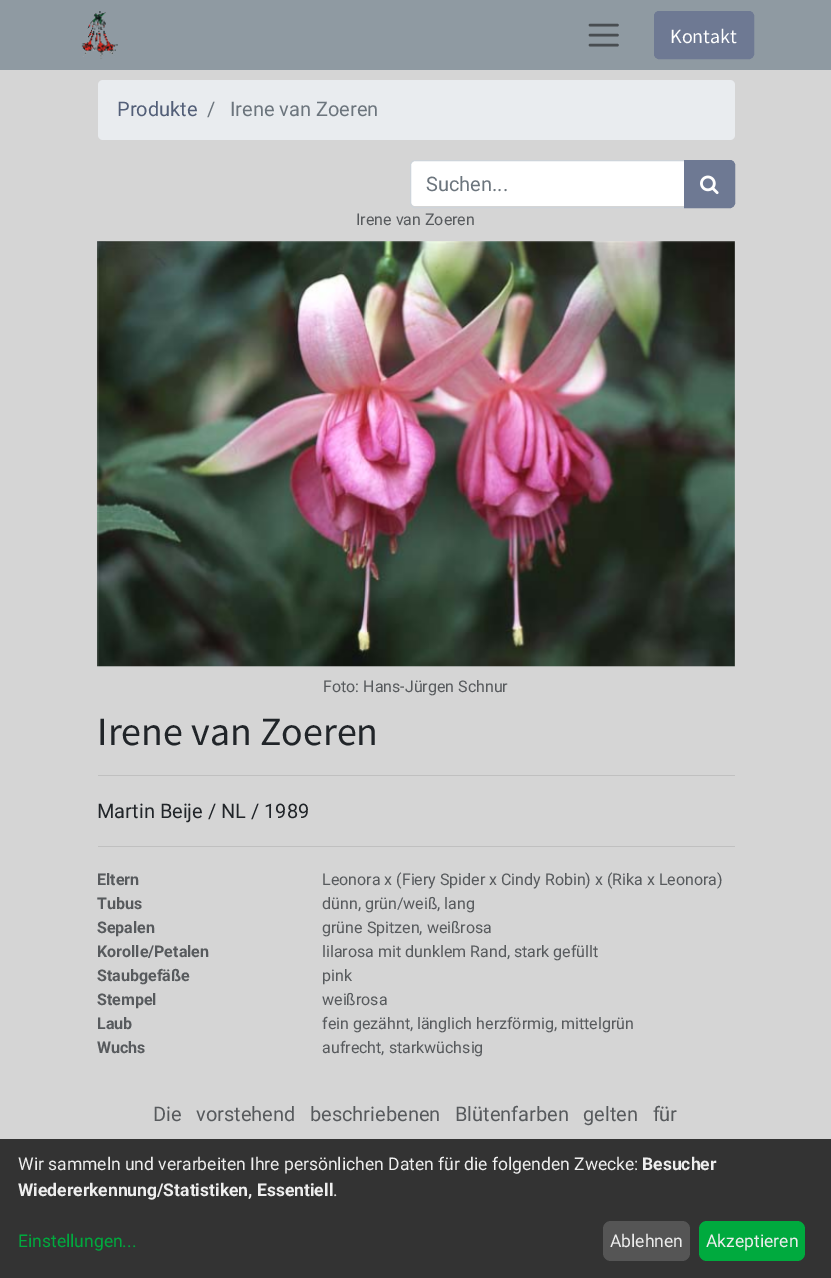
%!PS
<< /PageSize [831 1278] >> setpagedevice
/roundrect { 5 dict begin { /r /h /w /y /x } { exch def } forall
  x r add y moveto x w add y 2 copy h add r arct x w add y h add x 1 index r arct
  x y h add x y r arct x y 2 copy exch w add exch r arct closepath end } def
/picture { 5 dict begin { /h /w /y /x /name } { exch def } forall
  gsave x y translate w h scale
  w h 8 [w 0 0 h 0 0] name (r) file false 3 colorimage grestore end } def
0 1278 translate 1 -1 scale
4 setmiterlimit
0.835 setgray
0 0 831 1278 rectfill
0.561 0.604 0.635 setrgbcolor
0 0 831 70 rectfill
(img1.rgb) 81 11 37 48 picture
0.282 0.302 0.318 setrgbcolor
2.5 setlinewidth
1 setlinecap
newpath 590 25 moveto 617.5 25 lineto 590 35 moveto 617.5 35 lineto 590 45 moveto 617.5 45 lineto stroke
0.431 0.475 0.576 setrgbcolor
654.5 11.5 99 47 4.5 roundrect gsave fill grestore
1 setlinewidth
0 setlinecap
stroke
/SourceSansPro-Regular [20 0 0 -20 0 0] selectfont
1 setgray
670 43 moveto (Kontakt) show
0.914 0.925 0.937 setrgbcolor
98 80 637 60 5 roundrect fill
/Roboto-Regular [20 0 0 -20 0 0] selectfont
0.325 0.373 0.471 setrgbcolor
117 116 moveto (Produkte) show
0.424 0.459 0.49 setrgbcolor
207 116 moveto (/) show
230 116 moveto (Irene van Zoeren) show
1 setgray
newpath 415 161 moveto 684 161 lineto 684 206 lineto 415 206 lineto 413 206 411 204 411 202 curveto 411 165 lineto 411 163 413 161 415 161 curveto closepath fill
0.808 0.831 0.855 setrgbcolor
newpath 415 160.5 moveto 684.5 160.5 lineto 684.5 207.5 lineto 415 207.5 lineto 412.5 207.5 410.5 205.5 410.5 203 curveto 410.5 165 lineto 410.5 162.5 412.5 160.5 415 160.5 curveto closepath stroke
0.424 0.459 0.49 setrgbcolor
426 191 moveto (Suchen...) show
0.431 0.475 0.576 setrgbcolor
newpath 684.5 160.5 moveto 730 160.5 lineto 732.5 160.5 734.5 162.5 734.5 165 curveto 734.5 203 lineto 734.5 205.5 732.5 207.5 730 207.5 curveto 684.5 207.5 lineto closepath gsave fill grestore
stroke
(img2.rgb) 700 175 19 20 picture
/Roboto-Regular [16 0 0 -16 0 0] selectfont
0.341 0.353 0.365 setrgbcolor
356 225 moveto (Irene van Zoeren) show
(img3.rgb) 97 241 638 426 picture
323 692 moveto (Foto: Hans-Jürgen Schnur) show
/SourceSansPro-Regular [40 0 0 -40 0 0] selectfont
0.129 0.145 0.161 setrgbcolor
97 745 moveto (Irene van Zoeren) show
0.753 setgray
98 775 637 1 rectfill
/Roboto-Regular [20 0 0 -20 0 0] selectfont
0.129 0.145 0.161 setrgbcolor
97 818 moveto (Martin Beije / NL / 1989) show
0.753 setgray
98 846 637 1 rectfill
/Roboto-Bold [16 0 0 -16 0 0] selectfont
0.341 0.353 0.365 setrgbcolor
97 885 moveto (Eltern) show
/Roboto-Regular [16 0 0 -16 0 0] selectfont
322 885 moveto (Leonora x \(Fiery Spider x Cindy Robin\) x \(Rika x Leonora\)) show
/Roboto-Bold [16 0 0 -16 0 0] selectfont
97 909 moveto (Tubus) show
/Roboto-Regular [16 0 0 -16 0 0] selectfont
322 909 moveto (dünn, grün/weiß, lang) show
/Roboto-Bold [16 0 0 -16 0 0] selectfont
97 933 moveto (Sepalen) show
/Roboto-Regular [16 0 0 -16 0 0] selectfont
322 933 moveto (grüne Spitzen, weißrosa) show
/Roboto-Bold [16 0 0 -16 0 0] selectfont
97 957 moveto (Korolle/Petalen) show
/Roboto-Regular [16 0 0 -16 0 0] selectfont
322 957 moveto (lilarosa mit dunklem Rand, stark gefüllt) show
/Roboto-Bold [16 0 0 -16 0 0] selectfont
97 981 moveto (Staubgefäße) show
/Roboto-Regular [16 0 0 -16 0 0] selectfont
322 981 moveto (pink) show
/Roboto-Bold [16 0 0 -16 0 0] selectfont
97 1005 moveto (Stempel) show
/Roboto-Regular [16 0 0 -16 0 0] selectfont
322 1005 moveto (weißrosa) show
/Roboto-Bold [16 0 0 -16 0 0] selectfont
97 1029 moveto (Laub) show
/Roboto-Regular [16 0 0 -16 0 0] selectfont
322 1029 moveto (fein gezähnt, länglich herzförmig, mittelgrün) show
/Roboto-Bold [16 0 0 -16 0 0] selectfont
97 1053 moveto (Wuchs) show
/Roboto-Regular [16 0 0 -16 0 0] selectfont
322 1053 moveto (aufrecht, starkwüchsig) show
/Roboto-Regular [20 0 0 -20 0 0] selectfont
153 1121 moveto 9.5 0 32 (Die vorstehend beschriebenen Blütenfarben gelten für) widthshow
0.2 setgray
0 1139 831 139 rectfill
/Roboto-Regular [17.5 0 0 -17.5 0 0] selectfont
0.933 setgray
18 1170 moveto (Wir sammeln und verarbeiten Ihre persönlichen Daten für die folgenden Zwecke:) show
/Roboto-Bold [17.5 0 0 -17.5 0 0] selectfont
642 1170 moveto (Besucher) show
18 1196 moveto (Wiedererkennung/Statistiken, Essentiell) show
/Roboto-Regular [17.5 0 0 -17.5 0 0] selectfont
333 1196 moveto (.) show
0 0.667 0.243 setrgbcolor
18 1247 moveto (Einstellungen...) show
0.333 setgray
603 1221 87 40 8 roundrect fill
0.933 setgray
610 1247 moveto (Ablehnen) show
0 0.667 0.243 setrgbcolor
699 1221 106 40 8 roundrect fill
0.933 setgray
706 1247 moveto (Akzeptieren) show
showpage
